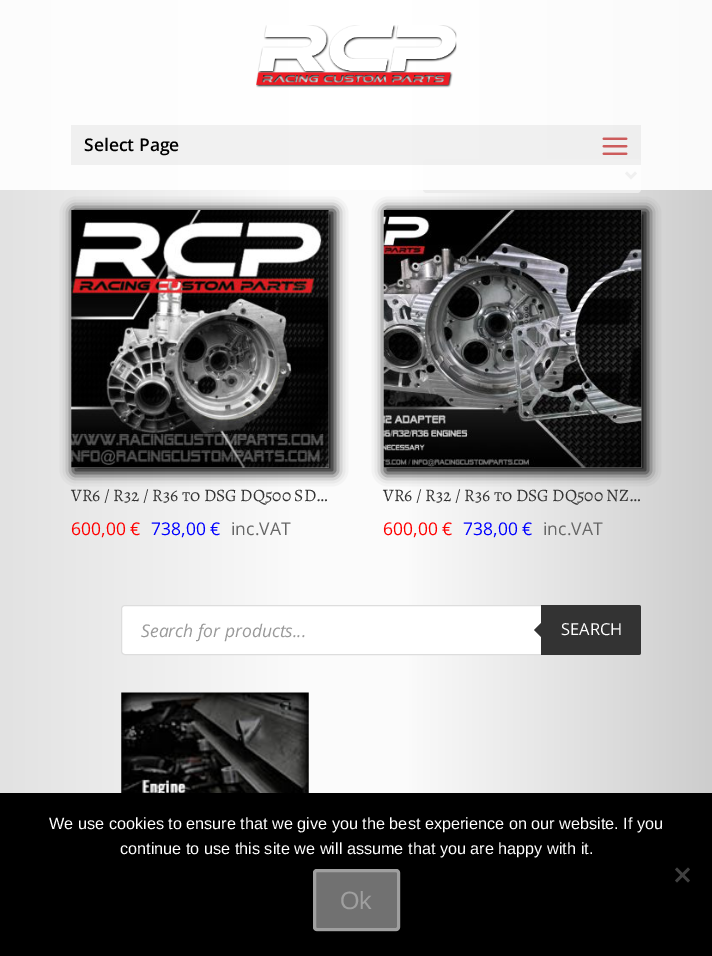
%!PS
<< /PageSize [712 956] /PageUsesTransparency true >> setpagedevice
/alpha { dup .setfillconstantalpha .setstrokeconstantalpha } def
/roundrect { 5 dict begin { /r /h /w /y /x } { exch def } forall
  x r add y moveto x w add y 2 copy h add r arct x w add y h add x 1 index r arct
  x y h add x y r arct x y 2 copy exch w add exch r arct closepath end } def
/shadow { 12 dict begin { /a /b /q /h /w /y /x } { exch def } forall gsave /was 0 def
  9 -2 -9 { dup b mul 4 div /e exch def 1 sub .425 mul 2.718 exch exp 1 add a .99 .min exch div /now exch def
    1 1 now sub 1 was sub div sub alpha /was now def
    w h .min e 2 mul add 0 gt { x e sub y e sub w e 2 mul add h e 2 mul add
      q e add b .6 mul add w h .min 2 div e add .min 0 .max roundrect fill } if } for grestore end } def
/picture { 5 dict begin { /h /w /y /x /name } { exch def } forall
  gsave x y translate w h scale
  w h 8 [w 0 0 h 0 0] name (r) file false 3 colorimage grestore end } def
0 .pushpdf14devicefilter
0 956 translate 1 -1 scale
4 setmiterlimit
1 setgray
0 0 712 956 rectfill
gsave newpath 0 0 moveto 712 0 lineto 712 793 lineto 0 793 lineto closepath clip newpath
<< /ShadingType 2 /ColorSpace /DeviceRGB /Coords [0 713 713 713] /Extend [true true] /Function << /FunctionType 3 /Domain [0 1] /Functions [<< /FunctionType 2 /Domain [0 1] /C0 [0.886 0.886 0.886] /C1 [0.984 0.984 0.984] /N 1 >> << /FunctionType 2 /Domain [0 1] /C0 [0.984 0.984 0.984] /C1 [0.984 0.984 0.984] /N 1 >> << /FunctionType 2 /Domain [0 1] /C0 [0.984 0.984 0.984] /C1 [0.804 0.804 0.804] /N 1 >>] /Bounds [0.43 0.57] /Encode [0 1 0 1 0 1] >> >> shfill grestore
0.925 setgray
423 159 218 34 4 roundrect fill
0.4 setgray
2.5 setlinewidth
newpath 626 172.5 moveto 631 177.5 lineto 636 172.5 lineto stroke
0.9 alpha
1 setgray
0 0 712 190 rectfill
1 alpha
(img1.rgb) 256 25 201 63 picture
0.05 alpha
0 setgray
71 125 570 40 rectfill
/OpenSans-SemiBold [17.5 0 0 -17.5 0 0] selectfont
1 alpha
84 151 moveto (Select Page) show
(img2.rgb) 602 137 26 18 picture
73 210 262 263 0 6 0.98 shadow
(img3.rgb) 71 210 258 258 picture
/AlegreyaSC-Regular [17.5 0 0 -17.5 0 0] selectfont
0.2 setgray
71 501 moveto (VR6 / R32 / R36 to DSG DQ500 SD…) show
/OpenSans-Regular [17.5 0 0 -17.5 0 0] selectfont
1 0 0 setrgbcolor
71 535 moveto (600,00 €) show
0 0 1 setrgbcolor
151 535 moveto (738,00 €) show
0.4 setgray
231 535 moveto (inc.VAT) show
0 setgray
385 210 263 263 0 6 0.98 shadow
(img4.rgb) 383 210 259 258 picture
/AlegreyaSC-Regular [17.5 0 0 -17.5 0 0] selectfont
0.2 setgray
383 501 moveto (VR6 / R32 / R36 to DSG DQ500 NZ…) show
/OpenSans-Regular [17.5 0 0 -17.5 0 0] selectfont
1 0 0 setrgbcolor
383 535 moveto (600,00 €) show
0 0 1 setrgbcolor
463 535 moveto (738,00 €) show
0.4 setgray
543 535 moveto (inc.VAT) show
1 setgray
121.5 605.5 519 49 3.5 roundrect gsave fill grestore
0.867 setgray
1 setlinewidth
stroke
/OpenSans-Italic [17.5 0 0 -17.5 0 0] selectfont
0.6 setgray
141 637 moveto (Search for products...) show
0.2 setgray
newpath 541 605 moveto 638.5 605 lineto 640 605 641 606 641 607.5 curveto 641 652.5 lineto 641 654 640 655 638.5 655 curveto 541 655 lineto closepath fill
newpath 544 620 moveto 544 640 lineto 534 630 lineto closepath fill
/OpenSans-Regular [16.5 0 0 -16.5 0 0] selectfont
1 setgray
561 635 moveto (SEARCH) show
(img5.rgb) 121 692 188 101 picture
0 setgray
0 793 712 163 rectfill
/LiberationSans-Regular [16.25 0 0 -16.25 0 0] selectfont
1 setgray
49 829 moveto (We use cookies to ensure that we give you the best experience on our website. If you) show
120 854 moveto (continue to use this site we will assume that you are happy with it.) show
0.251 setgray
newpath 688 867.5 moveto 690 869.5 lineto 677 882.5 lineto 675 880.5 lineto closepath fill
newpath 675 869.5 moveto 677 867.5 lineto 690 880.5 lineto 688 882.5 lineto closepath fill
0.443 setgray
313 869 87 62 4 roundrect fill
0.68 alpha
0.71 setgray
3 setlinewidth
314.5 870.5 84 59 2.5 roundrect stroke
/LiberationSans-Regular [25 0 0 -25 0 0] selectfont
1 alpha
0.624 setgray
340 909 moveto (Ok) show
.poppdf14devicefilter showpage
